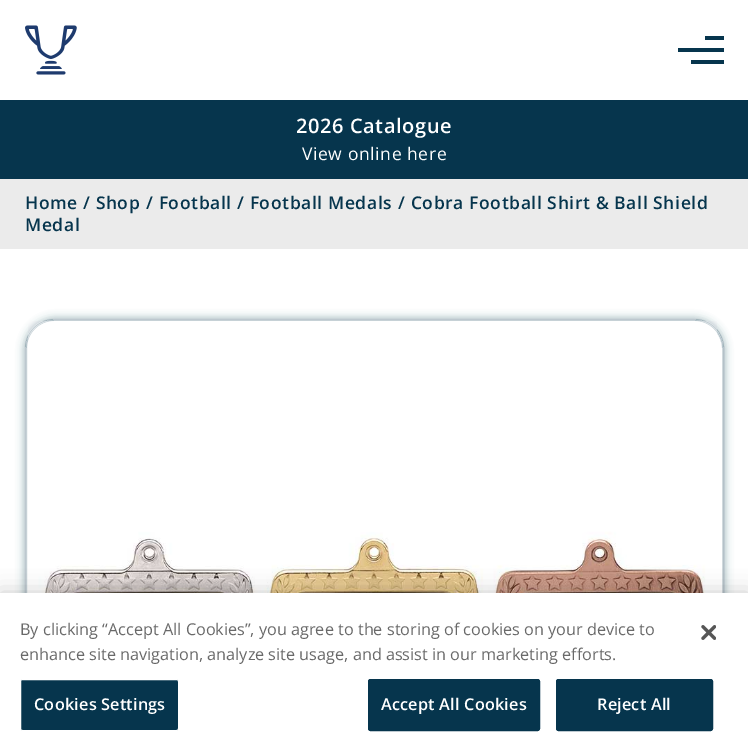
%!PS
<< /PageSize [748 750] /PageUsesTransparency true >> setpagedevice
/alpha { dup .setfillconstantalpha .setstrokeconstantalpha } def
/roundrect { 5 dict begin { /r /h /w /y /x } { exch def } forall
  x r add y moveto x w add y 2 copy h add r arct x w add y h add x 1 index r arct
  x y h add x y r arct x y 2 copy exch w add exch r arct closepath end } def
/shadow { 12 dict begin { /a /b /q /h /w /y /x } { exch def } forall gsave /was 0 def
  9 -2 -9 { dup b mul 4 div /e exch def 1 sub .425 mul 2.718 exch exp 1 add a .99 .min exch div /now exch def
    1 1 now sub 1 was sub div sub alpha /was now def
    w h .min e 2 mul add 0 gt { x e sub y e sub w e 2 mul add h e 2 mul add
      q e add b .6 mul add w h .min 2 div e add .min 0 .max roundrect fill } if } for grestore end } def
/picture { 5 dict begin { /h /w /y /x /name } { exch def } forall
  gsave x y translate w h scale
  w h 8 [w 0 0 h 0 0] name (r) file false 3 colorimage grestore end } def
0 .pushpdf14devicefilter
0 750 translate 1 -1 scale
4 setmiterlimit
1 setgray
0 0 748 750 rectfill
(img1.rgb) 25 25 52 50 picture
0.024 0.208 0.302 setrgbcolor
705 36 19 4 rectfill
678 48 46 4 rectfill
691 60 33 4 rectfill
0 100 748 79 rectfill
/OpenSans-SemiBold [20 0 0 -20 0 0] selectfont
1 setgray
296 133 moveto 0.6 0 (2026 Catalogue) ashow
/OpenSans-Regular [17.5 0 0 -17.5 0 0] selectfont
302 160 moveto 0.6 0 (View online here) ashow
0.922 setgray
0 179 748 70 rectfill
/OpenSans-SemiBold [17.5 0 0 -17.5 0 0] selectfont
0.024 0.208 0.302 setrgbcolor
25 209 moveto 0.6 0 (Home) ashow
83 209 moveto 0.6 0 (/ Shop) ashow
146 209 moveto 0.6 0 (/ Football) ashow
237 209 moveto 0.6 0 (/ Football Medals) ashow
398 209 moveto 0.6 0 (/ Cobra Football Shirt & Ball Shield) ashow
25 231 moveto 0.6 0 (Medal) ashow
gsave
newpath 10 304 moveto 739 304 lineto 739 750 lineto 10 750 lineto closepath 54 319 moveto 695 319 lineto 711 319 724 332 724 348 curveto 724 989 lineto 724 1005 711 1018 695 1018 curveto 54 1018 lineto 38 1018 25 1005 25 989 curveto 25 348 lineto 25 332 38 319 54 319 curveto closepath eoclip newpath
25 319 699 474 29 4.5 0.31 shadow
grestore
0.19 alpha
25.5 319.5 698 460 28.5 roundrect stroke
gsave
newpath 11 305 moveto 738 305 lineto 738 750 lineto 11 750 lineto closepath 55 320 moveto 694 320 lineto 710 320 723 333 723 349 curveto 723 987 lineto 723 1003 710 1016 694 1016 curveto 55 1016 lineto 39 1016 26 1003 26 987 curveto 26 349 lineto 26 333 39 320 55 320 curveto closepath eoclip newpath
1 alpha
0.122 0.286 0.373 setrgbcolor
26 320 697 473 29 4.5 0.23 shadow
grestore
26.5 320.5 696 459 28.5 roundrect stroke
1 alpha
(img2.rgb) 28 321 689 272 picture
0 setgray
0 593 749 157 0 11 0.2 shadow
1 setgray
0 593 748 157 rectfill
/OpenSans-Regular [16.25 0 0 -16.25 0 0] selectfont
0.412 setgray
20 635 moveto (By clicking “Accept All Cookies”, you agree to the storing of cookies on your device to) show
20 660 moveto (enhance site navigation, analyze site usage, and assist in our marketing efforts.) show
0.024 0.208 0.302 setrgbcolor
20.5 679.5 158 51 2 roundrect gsave fill grestore
1 setgray
stroke
/OpenSans-SemiBold [16.25 0 0 -16.25 0 0] selectfont
34 710 moveto 0.2 0 (Cookies Settings) ashow
0.024 0.208 0.302 setrgbcolor
368.5 679.5 171 51 2 roundrect gsave fill grestore
stroke
1 setgray
381 710 moveto 0.2 0 (Accept All Cookies) ashow
0.024 0.208 0.302 setrgbcolor
556.5 679.5 156 51 2 roundrect gsave fill grestore
stroke
1 setgray
597 710 moveto 0.2 0 (Reject All) ashow
(img3.rgb) 701 625 15 15 picture
.poppdf14devicefilter showpage
